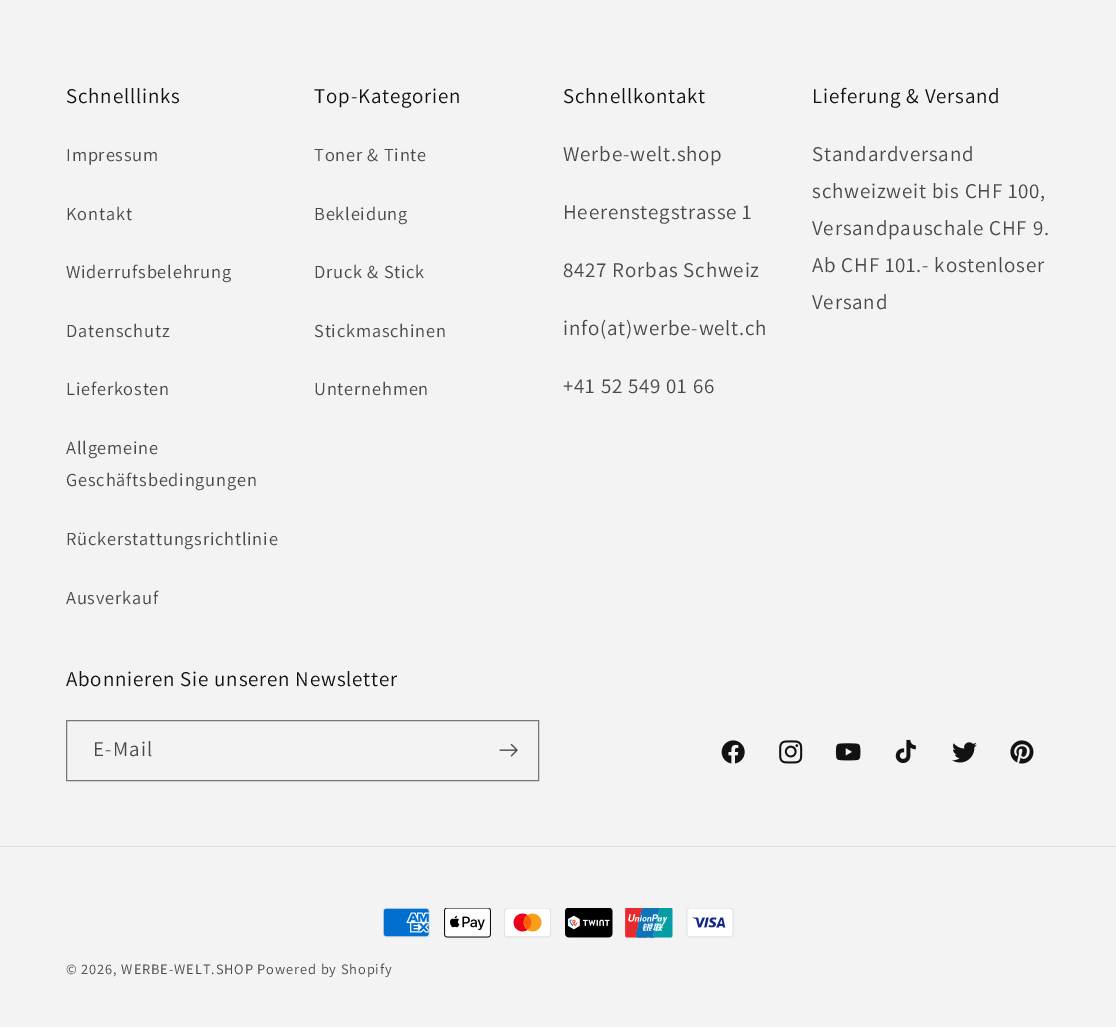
%!PS
<< /PageSize [1116 1027] >> setpagedevice
/picture { 5 dict begin { /h /w /y /x /name } { exch def } forall
  gsave x y translate w h scale
  w h 8 [w 0 0 h 0 0] name (r) file false 3 colorimage grestore end } def
0 1027 translate 1 -1 scale
4 setmiterlimit
0.953 setgray
0 0 1116 1027 rectfill
/Assistant-Regular [21 0 0 -21 0 0] selectfont
0.071 setgray
66 103 moveto 0.8 0 (Schnelllinks) ashow
/Assistant-Regular [18.4 0 0 -18.4 0 0] selectfont
0.29 setgray
66 161 moveto 0.8 0 (Impressum) ashow
66 220 moveto 0.8 0 (Kontakt) ashow
66 278 moveto 0.8 0 (Widerrufsbelehrung) ashow
66 337 moveto 0.8 0 (Datenschutz) ashow
66 395 moveto 0.8 0 (Lieferkosten) ashow
66 454 moveto 0.8 0 (Allgemeine) ashow
66 486 moveto 0.8 0 (Geschäftsbedingungen) ashow
66 545 moveto 0.8 0 (Rückerstattungsrichtlinie) ashow
66 604 moveto 0.8 0 (Ausverkauf) ashow
/Assistant-Regular [21 0 0 -21 0 0] selectfont
0.071 setgray
314 103 moveto 0.8 0 (Top-Kategorien) ashow
/Assistant-Regular [18.4 0 0 -18.4 0 0] selectfont
0.29 setgray
314 161 moveto 0.8 0 (Toner & Tinte) ashow
314 220 moveto 0.8 0 (Bekleidung) ashow
314 278 moveto 0.8 0 (Druck & Stick) ashow
314 337 moveto 0.8 0 (Stickmaschinen) ashow
314 395 moveto 0.8 0 (Unternehmen) ashow
/Assistant-Regular [21 0 0 -21 0 0] selectfont
0.071 setgray
563 103 moveto 0.8 0 (Schnellkontakt) ashow
0.29 setgray
563 161 moveto 0.8 0 (Werbe-welt.shop) ashow
563 219 moveto 0.8 0 (Heerenstegstrasse 1) ashow
563 277 moveto 0.8 0 (8427 Rorbas Schweiz) ashow
563 335 moveto 0.8 0 (info\(at\)werbe-welt.ch) ashow
563 393 moveto 0.8 0 (+41 52 549 01 66) ashow
0.071 setgray
812 103 moveto 0.8 0 (Lieferung & Versand) ashow
0.29 setgray
812 161 moveto 0.8 0 (Standardversand) ashow
812 198 moveto 0.8 0 (schweizweit bis CHF 100,) ashow
812 235 moveto 0.8 0 (Versandpauschale CHF 9.) ashow
812 272 moveto 0.8 0 (Ab CHF 101.- kostenloser) ashow
812 309 moveto 0.8 0 (Versand) ashow
0.071 setgray
66 686 moveto 0.8 0 (Abonnieren Sie unseren Newsletter) ashow
0.467 setgray
66.5 720.5 472 60 rectstroke
0.29 setgray
93 756 moveto 1.25 0 (E-Mail) ashow
(img1.rgb) 499 743 19 14 picture
(img2.rgb) 721 740 24 24 picture
(img3.rgb) 779 740 24 24 picture
(img4.rgb) 835 743 26 18 picture
(img5.rgb) 895 739 21 25 picture
(img6.rgb) 952 742 25 21 picture
(img7.rgb) 1010 740 24 24 picture
0.882 setgray
0 846 1116 1 rectfill
(img8.rgb) 383 908 47 30 picture
(img9.rgb) 444 908 47 30 picture
(img10.rgb) 504 908 47 30 picture
(img11.rgb) 565 908 48 30 picture
(img12.rgb) 625 908 48 30 picture
(img13.rgb) 686 908 48 30 picture
/Assistant-Regular [14.4 0 0 -14.4 0 0] selectfont
0.29 setgray
66 974 moveto 0.9 0 (© 2026, WERBE-WELT.SHOP Powered by Shopify) ashow
showpage
